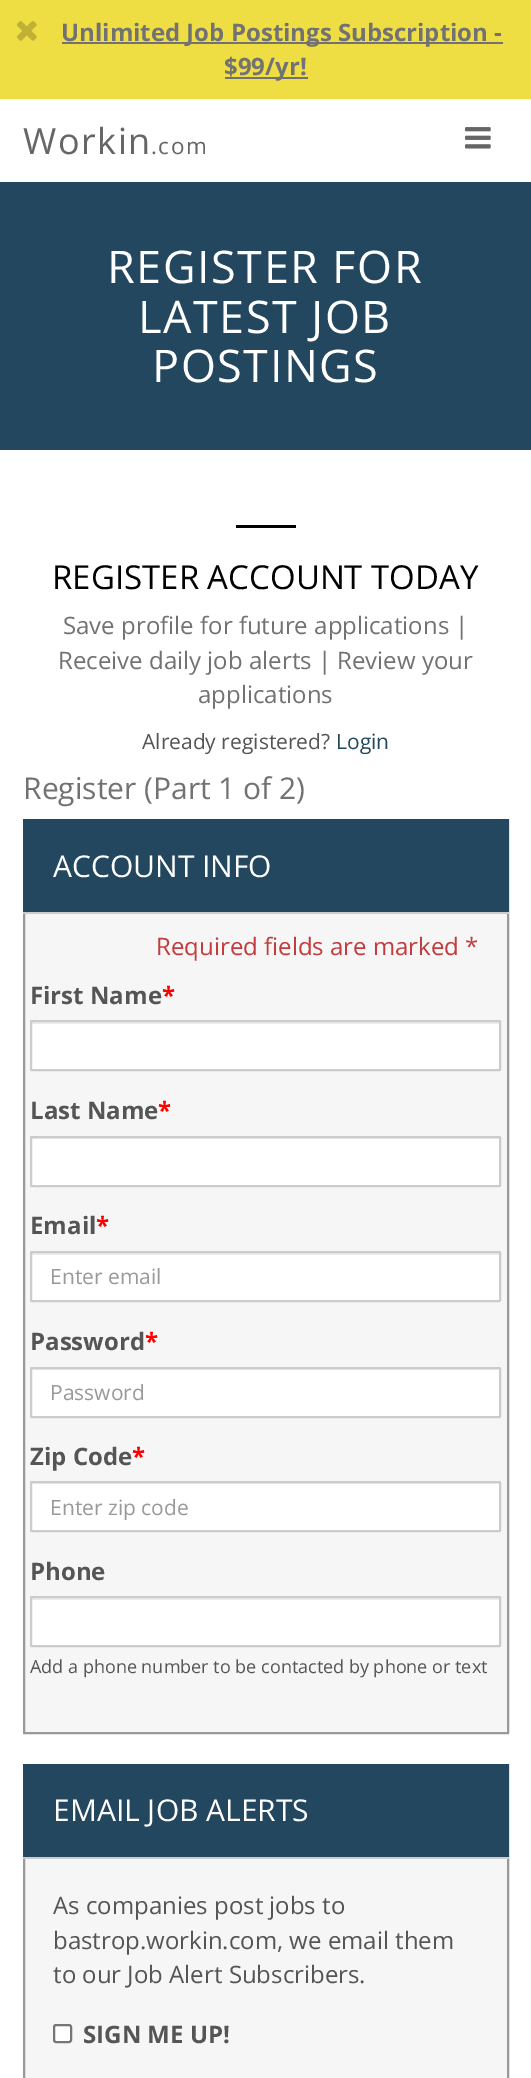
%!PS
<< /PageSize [531 2078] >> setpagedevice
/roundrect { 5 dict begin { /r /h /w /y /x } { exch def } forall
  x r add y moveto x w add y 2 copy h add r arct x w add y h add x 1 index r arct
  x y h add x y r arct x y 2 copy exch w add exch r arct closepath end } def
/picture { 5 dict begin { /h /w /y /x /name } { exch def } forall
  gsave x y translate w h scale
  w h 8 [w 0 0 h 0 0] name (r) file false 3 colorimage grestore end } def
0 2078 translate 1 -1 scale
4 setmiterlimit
1 setgray
0 0 531 2078 rectfill
0.937 0.867 0.267 setrgbcolor
0 0 531 99 rectfill
(img1.rgb) 17 21 20 20 picture
0.447 setgray
62 42 441 2 rectfill
/OpenSans-Bold [24 0 0 -24 0 0] selectfont
61 41 moveto (Unlimited Job Postings Subscription -) show
225 77 83 2 rectfill
224 75 moveto ($99/yr!) show
/OpenSans-Regular [36 0 0 -36 0 0] selectfont
0.4 setgray
23 154 moveto 1.5 0 (Workin) ashow
/OpenSans-Regular [22.5 0 0 -22.5 0 0] selectfont
151 154 moveto 1.5 0 (.com) ashow
(img2.rgb) 465 127 26 22 picture
0.137 0.278 0.369 setrgbcolor
0 182 531 268 rectfill
/OpenSans-Regular [45 0 0 -45 0 0] selectfont
1 setgray
107 283 moveto 1.5 0 (REGISTER FOR) ashow
138 333 moveto 1.5 0 (LATEST JOB) ashow
152 382 moveto 1.5 0 (POSTINGS) ashow
0 setgray
236 525 60 3 rectfill
/OpenSans-Regular [33 0 0 -33 0 0] selectfont
52 589 moveto (REGISTER ACCOUNT TODAY) show
/OpenSans-Regular [24 0 0 -24 0 0] selectfont
0.447 setgray
63 634 moveto (Save profile for future applications |) show
58 669 moveto (Receive daily job alerts | Review your) show
198 703 moveto (applications) show
/OpenSans-Regular [21 0 0 -21 0 0] selectfont
0.333 setgray
142 749 moveto (Already registered?) show
0.137 0.278 0.369 setrgbcolor
336 749 moveto (Login) show
/OpenSans-Regular [30 0 0 -30 0 0] selectfont
0.447 setgray
23 799 moveto (Register \(Part 1 of 2\)) show
0.965 setgray
25 914 482 818 rectfill
0.6 setgray
2 setlinewidth
24 820 484 913 rectstroke
0.137 0.278 0.369 setrgbcolor
23 819 486 93 rectfill
0.8 setgray
23 912 486 2 rectfill
1 setgray
53 877 moveto (ACCOUNT INFO) show
/OpenSans-Regular [24 0 0 -24 0 0] selectfont
0.761 0.235 0.243 setrgbcolor
156 955 moveto (Required fields are marked *) show
/OpenSans-Bold [24 0 0 -24 0 0] selectfont
0.333 setgray
30 1004 moveto (First Name) show
1 0 0 setrgbcolor
162 1004 moveto (*) show
1 setgray
30 1020 471 51 1.5 roundrect fill
0.925 setgray
32 1022 468 2 rectfill
0.8 setgray
31 1021 469 49 0.5 roundrect stroke
0.333 setgray
30 1119 moveto (Last Name) show
1 0 0 setrgbcolor
158 1119 moveto (*) show
1 setgray
30 1136 471 51 1.5 roundrect fill
0.925 setgray
32 1138 468 1 rectfill
0.8 setgray
31 1137 469 49 0.5 roundrect stroke
0.333 setgray
30 1234 moveto (Email) show
1 0 0 setrgbcolor
96 1234 moveto (*) show
1 setgray
30 1251 471 51 1.5 roundrect fill
0.925 setgray
32 1253 468 2 rectfill
0.8 setgray
31 1252 469 49 0.5 roundrect stroke
/OpenSans-Regular [21 0 0 -21 0 0] selectfont
0.6 setgray
50 1284 moveto (Enter email) show
/OpenSans-Bold [24 0 0 -24 0 0] selectfont
0.333 setgray
30 1350 moveto (Password) show
1 0 0 setrgbcolor
145 1350 moveto (*) show
1 setgray
30 1367 471 51 1.5 roundrect fill
0.925 setgray
32 1369 468 1 rectfill
0.8 setgray
31 1368 469 49 0.5 roundrect stroke
/OpenSans-Regular [21 0 0 -21 0 0] selectfont
0.6 setgray
50 1400 moveto (Password) show
/OpenSans-Bold [24 0 0 -24 0 0] selectfont
0.333 setgray
30 1465 moveto (Zip Code) show
1 0 0 setrgbcolor
132 1465 moveto (*) show
1 setgray
30 1481 471 51 1.5 roundrect fill
0.925 setgray
32 1483 468 1 rectfill
0.8 setgray
31 1482 469 49 0.5 roundrect stroke
/OpenSans-Regular [21 0 0 -21 0 0] selectfont
0.6 setgray
50 1515 moveto (Enter zip code) show
/OpenSans-Bold [24 0 0 -24 0 0] selectfont
0.333 setgray
30 1580 moveto (Phone) show
1 setgray
30 1596 471 51 1.5 roundrect fill
0.925 setgray
32 1598 468 2 rectfill
0.8 setgray
31 1597 469 49 0.5 roundrect stroke
/OpenSans-Regular [18 0 0 -18 0 0] selectfont
0.333 setgray
30 1673 moveto (Add a phone number to be contacted by phone or text) show
0.965 setgray
25 1859 482 219 rectfill
0.6 setgray
24 1765 484 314 rectstroke
0.137 0.278 0.369 setrgbcolor
23 1764 486 93 rectfill
0.8 setgray
23 1857 486 2 rectfill
/OpenSans-Regular [30 0 0 -30 0 0] selectfont
1 setgray
53 1821 moveto (EMAIL JOB ALERTS) show
/OpenSans-Regular [24 0 0 -24 0 0] selectfont
0.333 setgray
53 1914 moveto (As companies post jobs to) show
53 1949 moveto (bastrop.workin.com, we email them) show
53 1983 moveto (to our Job Alert Subscribers.) show
1 setgray
54 2025 17 17 2 roundrect gsave fill grestore
0.463 setgray
stroke
/OpenSans-Bold [24 0 0 -24 0 0] selectfont
0.333 setgray
83 2043 moveto (SIGN ME UP!) show
showpage
